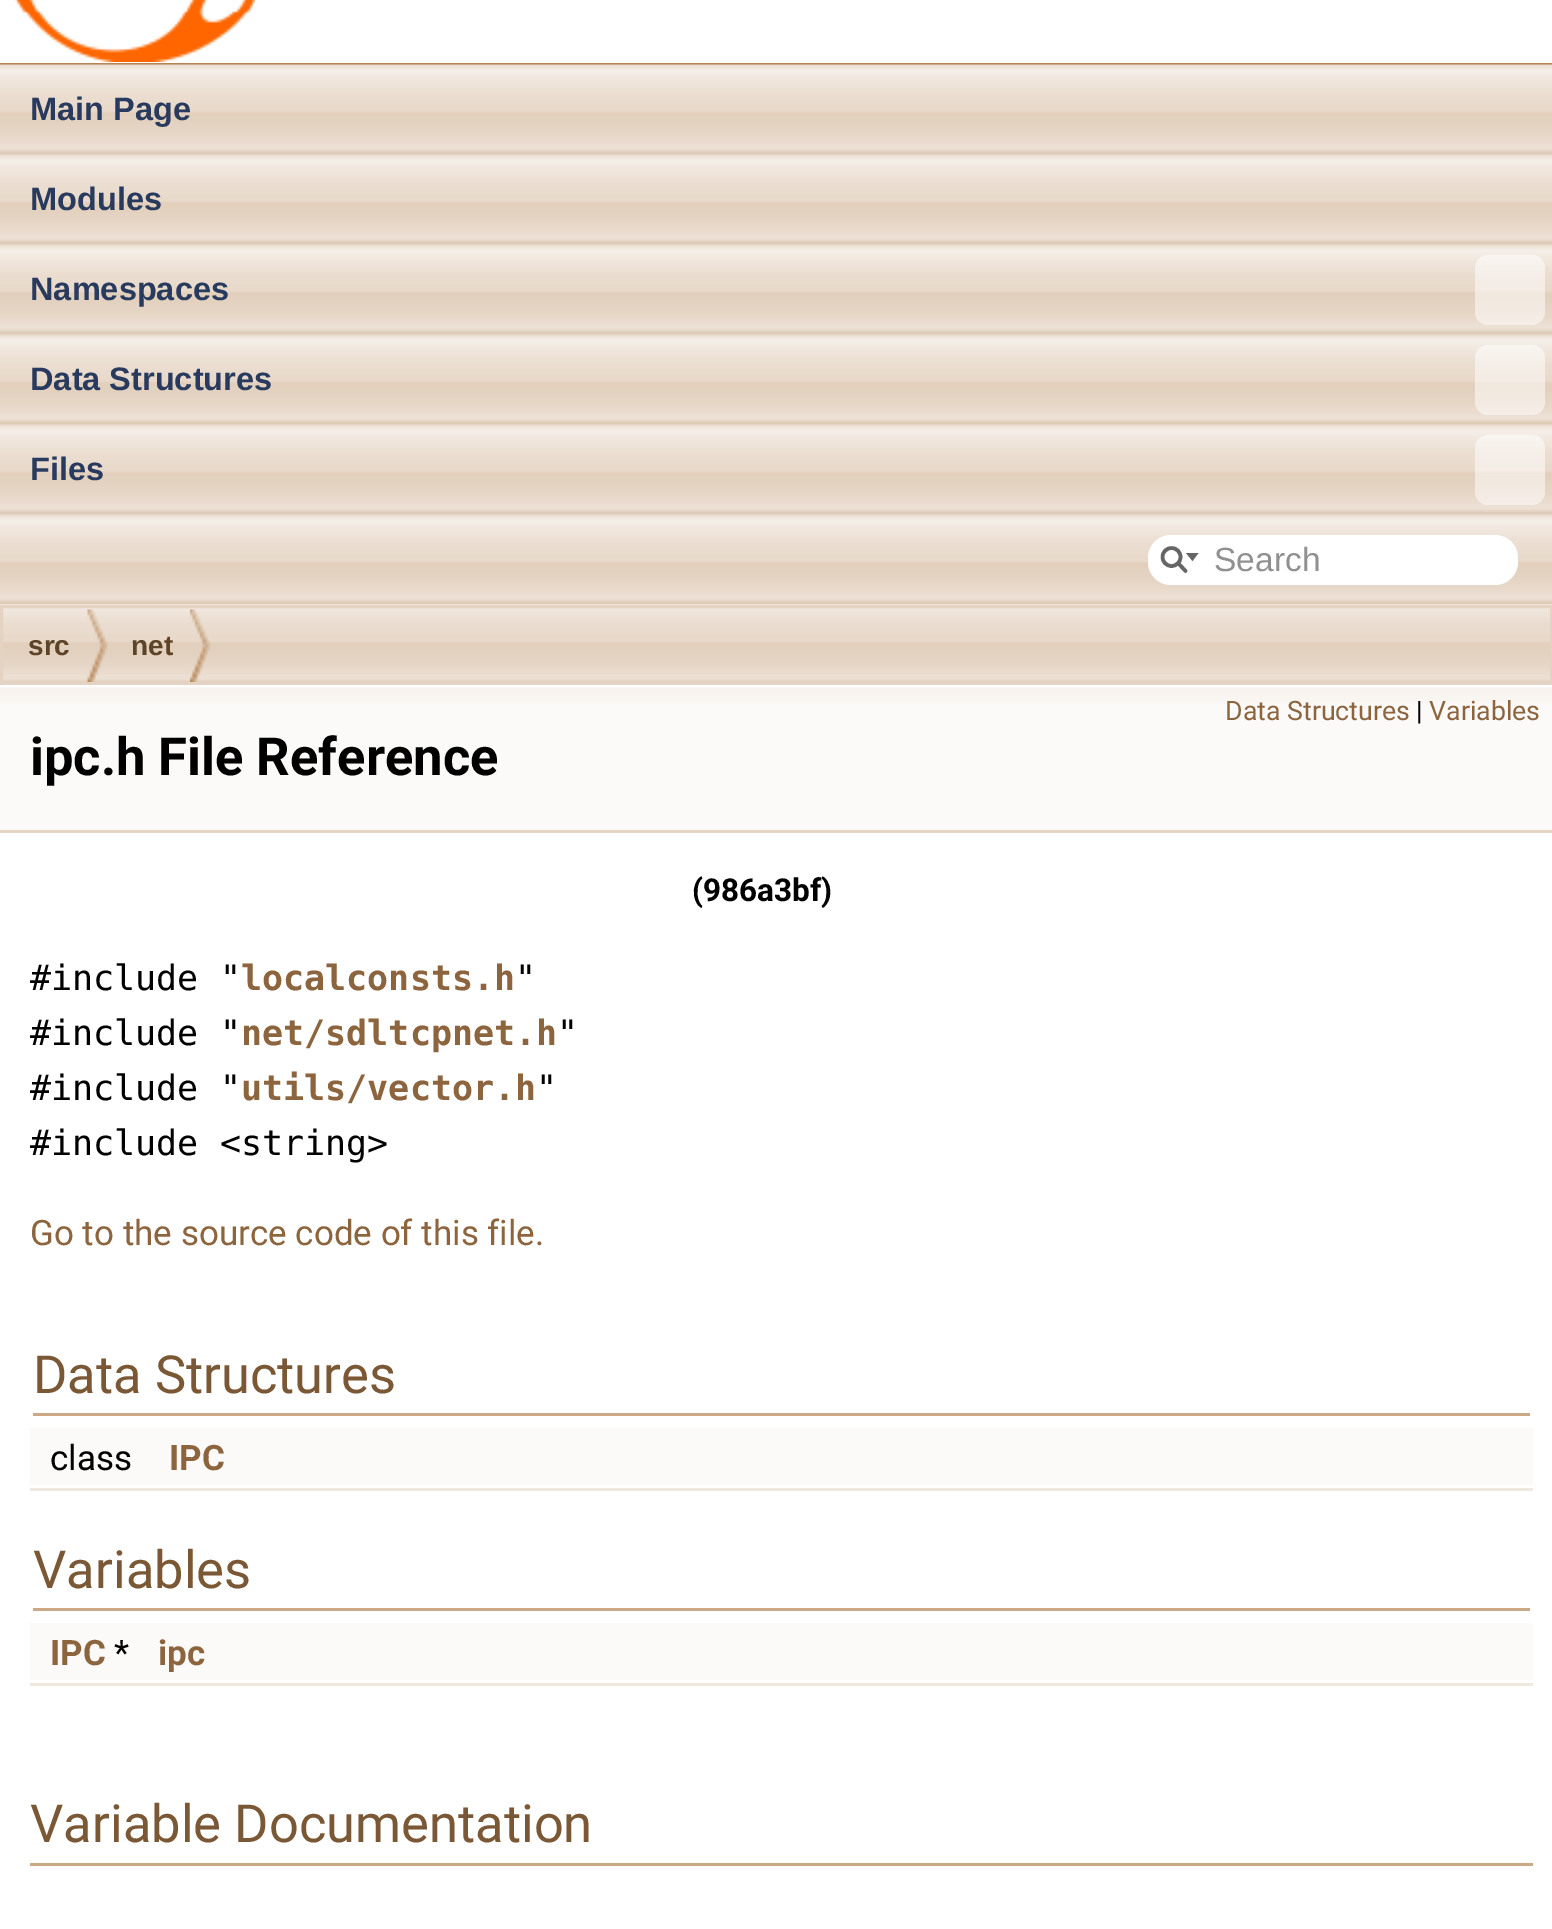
%!PS
<< /PageSize [1552 1929] /PageUsesTransparency true >> setpagedevice
/alpha { dup .setfillconstantalpha .setstrokeconstantalpha } def
/roundrect { 5 dict begin { /r /h /w /y /x } { exch def } forall
  x r add y moveto x w add y 2 copy h add r arct x w add y h add x 1 index r arct
  x y h add x y r arct x y 2 copy exch w add exch r arct closepath end } def
/picture { 5 dict begin { /h /w /y /x /name } { exch def } forall
  gsave x y translate w h scale
  w h 8 [w 0 0 h 0 0] name (r) file false 3 colorimage grestore end } def
0 .pushpdf14devicefilter
0 1929 translate 1 -1 scale
4 setmiterlimit
1 setgray
0 0 1552 1929 rectfill
0.706 0.518 0.325 setrgbcolor
0 63 1552 2 rectfill
(img1.rgb) 14 0 241 62 picture
(img3.rgb) 0 604 1552 78 picture
(img2.rgb) 0 64 1552 541 picture
/LiberationSans-Bold [32.5 0 0 -32.5 0 0] selectfont
0.157 0.227 0.365 setrgbcolor
30 120 moveto (Main Page) show
30 210 moveto (Modules) show
30 300 moveto (Namespaces) show
0.5 alpha
1 setgray
1475 255 70 70 13 roundrect fill
1 alpha
0.157 0.227 0.365 setrgbcolor
30 390 moveto (Data Structures) show
0.5 alpha
1 setgray
1475 345 70 70 13 roundrect fill
1 alpha
0.157 0.227 0.365 setrgbcolor
30 480 moveto (Files) show
0.5 alpha
1 setgray
1475 435 70 70 13 roundrect fill
1 alpha
1148 535 370 50 23 roundrect fill
0.396 setgray
3.6 setlinewidth
newpath 1171.5 557 9 0 360 arc closepath stroke
newpath 1186 553 moveto 1192.5 561 lineto 1198.5 553 lineto closepath fill
1 setlinecap
newpath 1178.5 563.5 moveto 1185.5 571 lineto stroke
/LiberationSans-Regular [33.5 0 0 -33.5 0 0] selectfont
0.565 setgray
1214 571 moveto (Search) show
0.894 0.827 0.761 setrgbcolor
3 setlinewidth
0 setlinecap
1.5 606.5 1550 77 rectstroke
(img4.rgb) 87 609 21 73 picture
/LiberationSans-Bold [28 0 0 -28 0 0] selectfont
0.365 0.263 0.157 setrgbcolor
28 655 moveto (src) show
(img5.rgb) 190 609 20 73 picture
131 655 moveto (net) show
0.988 0.98 0.976 setrgbcolor
0 704 1552 126 rectfill
(img6.rgb) 0 685 1552 19 picture
0.898 0.835 0.769 setrgbcolor
0 830 1552 3 rectfill
/Roboto-Regular [26.75 0 0 -26.75 0 0] selectfont
0.549 0.392 0.239 setrgbcolor
1225 720 moveto (Data Structures) show
0 setgray
1416 720 moveto (|) show
0.549 0.392 0.239 setrgbcolor
1429 720 moveto (Variables) show
/Roboto-Bold [52.5 0 0 -52.5 0 0] selectfont
0 setgray
30 775 moveto (ipc.h File Reference) show
/Roboto-Bold [31.5 0 0 -31.5 0 0] selectfont
692 901 moveto (\(986a3bf\)) show
/DejaVuSansMono-Regular [35 0 0 -35 0 0] selectfont
30 990 moveto (#include ") show
/DejaVuSansMono-Bold [35 0 0 -35 0 0] selectfont
0.549 0.392 0.239 setrgbcolor
241 990 moveto (localconsts.h) show
/DejaVuSansMono-Regular [35 0 0 -35 0 0] selectfont
0 setgray
515 990 moveto (") show
30 1045 moveto (#include ") show
/DejaVuSansMono-Bold [35 0 0 -35 0 0] selectfont
0.549 0.392 0.239 setrgbcolor
241 1045 moveto (net/sdltcpnet.h) show
/DejaVuSansMono-Regular [35 0 0 -35 0 0] selectfont
0 setgray
557 1045 moveto (") show
30 1100 moveto (#include ") show
/DejaVuSansMono-Bold [35 0 0 -35 0 0] selectfont
0.549 0.392 0.239 setrgbcolor
241 1100 moveto (utils/vector.h) show
/DejaVuSansMono-Regular [35 0 0 -35 0 0] selectfont
0 setgray
536 1100 moveto (") show
30 1155 moveto (#include <string>) show
/Roboto-Regular [35 0 0 -35 0 0] selectfont
0.549 0.392 0.239 setrgbcolor
30 1245 moveto (Go to the source code of this file.) show
0.796 0.663 0.529 setrgbcolor
33 1413 1497 3 rectfill
/Roboto-Regular [52.5 0 0 -52.5 0 0] selectfont
0.482 0.345 0.208 setrgbcolor
33 1393 moveto (Data Structures) show
0.988 0.98 0.976 setrgbcolor
30 1428 1503 57 rectfill
/Roboto-Regular [35 0 0 -35 0 0] selectfont
0 setgray
50 1470 moveto (class) show
/Roboto-Bold [35 0 0 -35 0 0] selectfont
0.549 0.392 0.239 setrgbcolor
169 1470 moveto (IPC) show
0.941 0.906 0.871 setrgbcolor
30 1488 1503 3 rectfill
0.796 0.663 0.529 setrgbcolor
33 1608 1497 3 rectfill
/Roboto-Regular [52.5 0 0 -52.5 0 0] selectfont
0.482 0.345 0.208 setrgbcolor
33 1588 moveto (Variables) show
0.988 0.98 0.976 setrgbcolor
30 1623 1503 57 rectfill
/Roboto-Bold [35 0 0 -35 0 0] selectfont
0.549 0.392 0.239 setrgbcolor
50 1665 moveto (IPC) show
/Roboto-Regular [35 0 0 -35 0 0] selectfont
0 setgray
114 1665 moveto (*) show
/Roboto-Bold [35 0 0 -35 0 0] selectfont
0.549 0.392 0.239 setrgbcolor
158 1665 moveto (ipc) show
0.941 0.906 0.871 setrgbcolor
30 1683 1503 3 rectfill
0.796 0.663 0.529 setrgbcolor
30 1863 1503 3 rectfill
/Roboto-Regular [52.5 0 0 -52.5 0 0] selectfont
0.482 0.345 0.208 setrgbcolor
30 1842 moveto (Variable Documentation) show
.poppdf14devicefilter showpage
